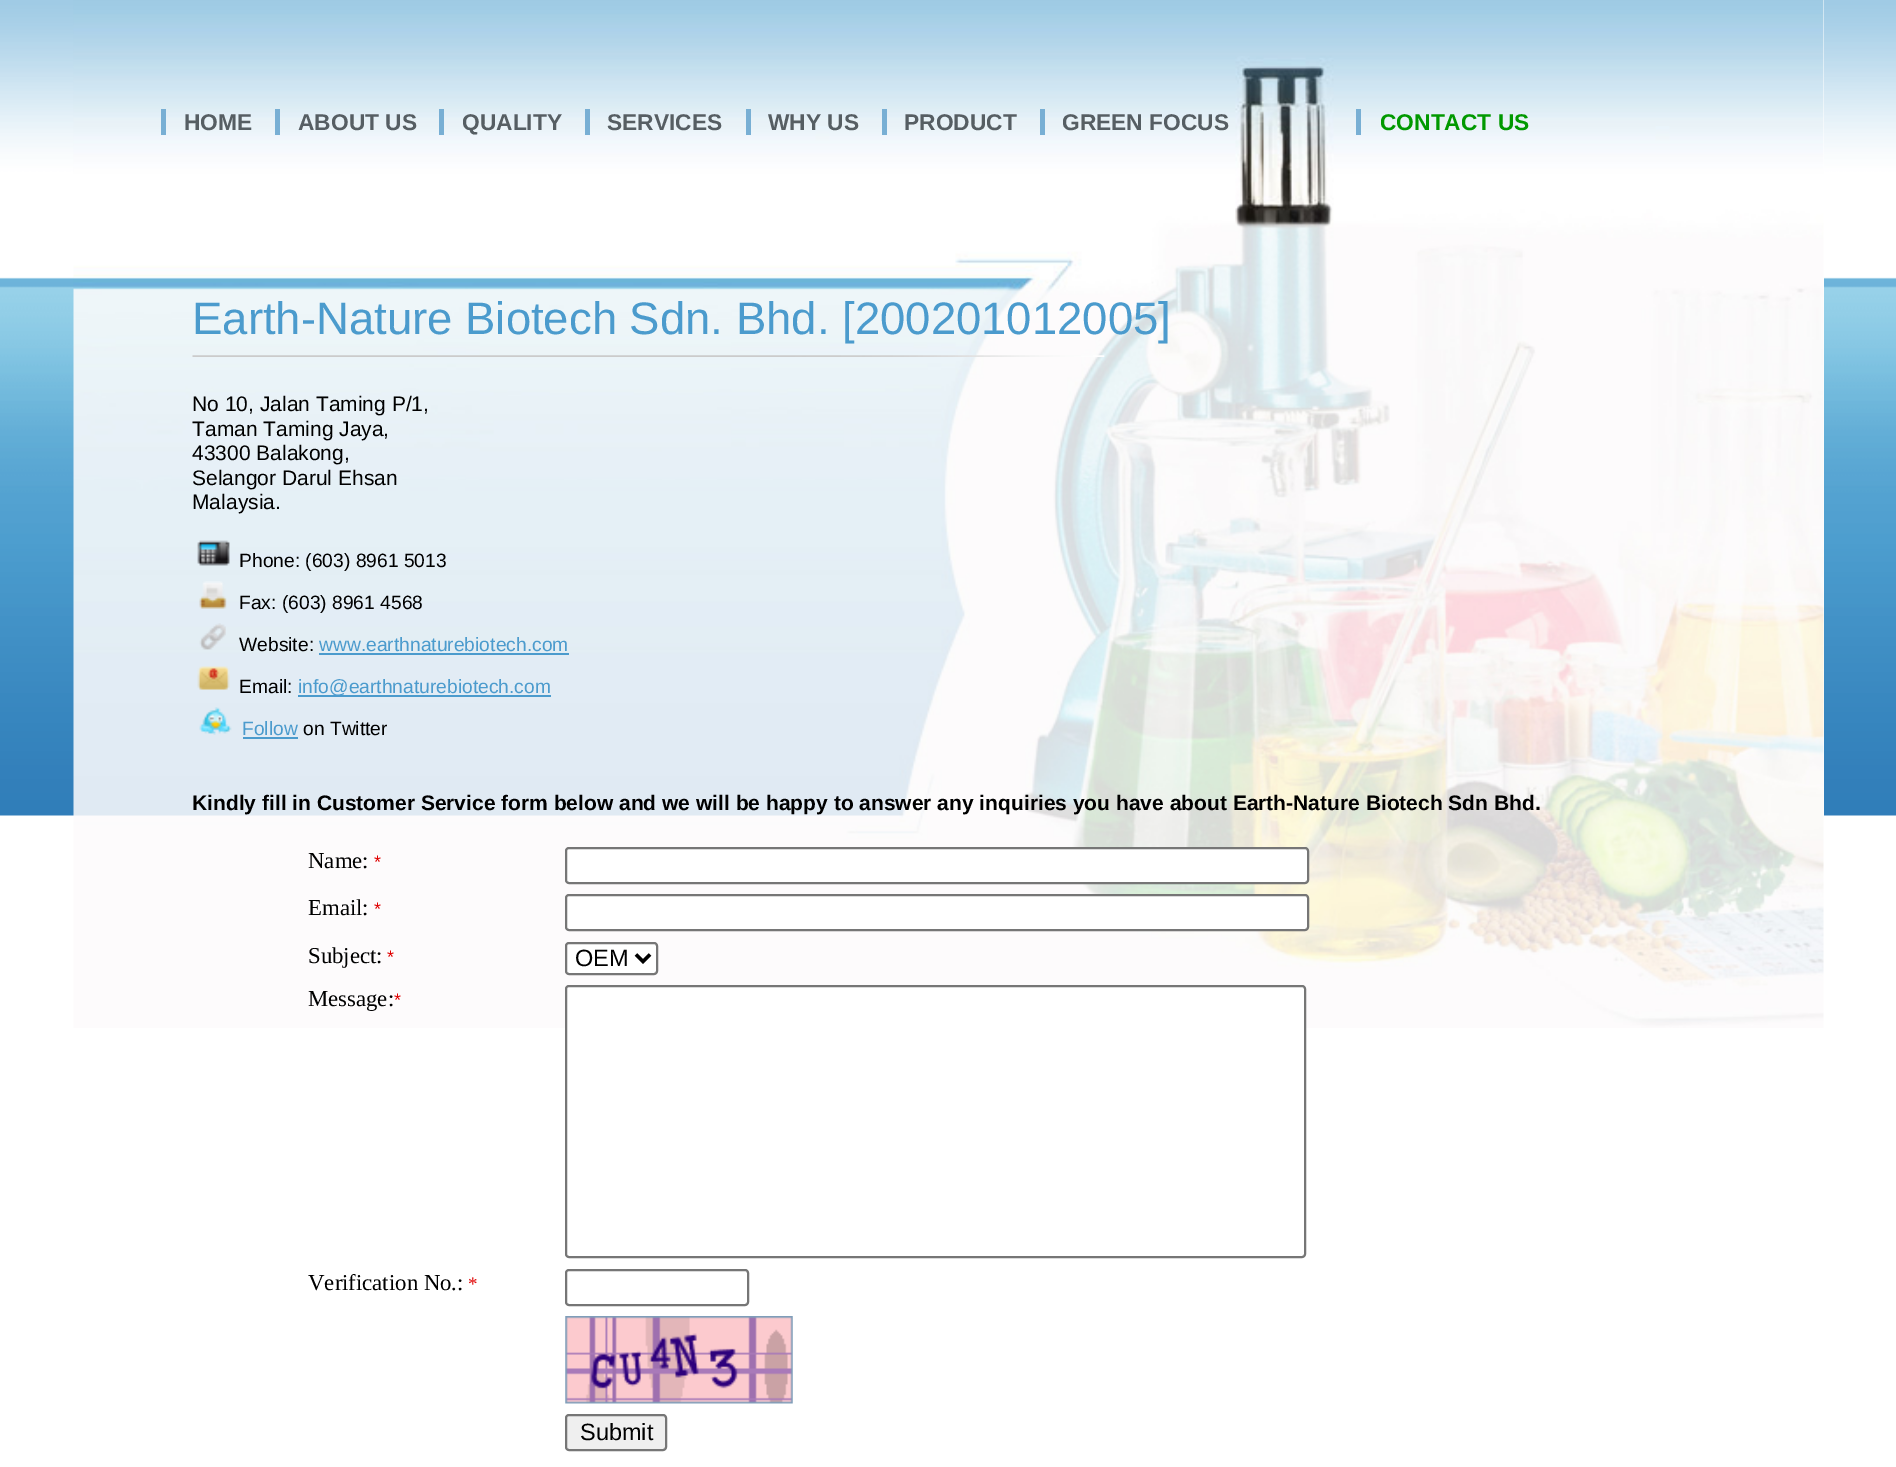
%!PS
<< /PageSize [1896 1467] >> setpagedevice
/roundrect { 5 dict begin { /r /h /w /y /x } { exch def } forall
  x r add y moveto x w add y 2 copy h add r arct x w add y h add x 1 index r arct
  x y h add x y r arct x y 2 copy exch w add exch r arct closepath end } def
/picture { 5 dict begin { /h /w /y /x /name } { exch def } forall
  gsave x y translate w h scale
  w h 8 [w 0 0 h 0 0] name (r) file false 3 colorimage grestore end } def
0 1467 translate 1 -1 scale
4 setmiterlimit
1 setgray
0 0 1896 1467 rectfill
(img1.rgb) 0 0 1896 816 picture
74 0 1750 816 rectfill
(img2.rgb) 73 0 1751 1028 picture
0.471 0.686 0.831 setrgbcolor
161 109 5 26 rectfill
/LiberationSans-Bold [22.75 0 0 -22.75 0 0] selectfont
0.337 0.369 0.388 setrgbcolor
184 130 moveto (HOME) show
0.471 0.686 0.831 setrgbcolor
275 109 5 26 rectfill
0.337 0.369 0.388 setrgbcolor
298 130 moveto (ABOUT US) show
0.471 0.686 0.831 setrgbcolor
439 109 5 26 rectfill
0.337 0.369 0.388 setrgbcolor
462 130 moveto (QUALITY) show
0.471 0.686 0.831 setrgbcolor
585 109 5 26 rectfill
0.337 0.369 0.388 setrgbcolor
607 130 moveto (SERVICES) show
0.471 0.686 0.831 setrgbcolor
746 109 5 26 rectfill
0.337 0.369 0.388 setrgbcolor
768 130 moveto (WHY US) show
0.471 0.686 0.831 setrgbcolor
882 109 5 26 rectfill
0.337 0.369 0.388 setrgbcolor
904 130 moveto (PRODUCT) show
0.471 0.686 0.831 setrgbcolor
1040 109 5 26 rectfill
0.337 0.369 0.388 setrgbcolor
1062 130 moveto (GREEN FOCUS) show
0.471 0.686 0.831 setrgbcolor
1356 109 5 26 rectfill
0 0.6 0 setrgbcolor
1380 130 moveto (CONTACT US) show
/LiberationSans-Regular [45.5 0 0 -45.5 0 0] selectfont
0.294 0.608 0.804 setrgbcolor
192 334 moveto (Earth-Nature Biotech Sdn. Bhd. [200201012005]) show
(img3.rgb) 192 355 913 2 picture
/LiberationSans-Regular [21 0 0 -21 0 0] selectfont
0 setgray
192 411 moveto (No 10, Jalan Taming P/1,) show
192 436 moveto (Taman Taming Jaya,) show
192 460 moveto (43300 Balakong,) show
192 485 moveto (Selangor Darul Ehsan) show
192 509 moveto (Malaysia.) show
(img4.rgb) 197 540 33 26 picture
/LiberationSans-Regular [19.25 0 0 -19.25 0 0] selectfont
239 567 moveto (Phone: \(603\) 8961 5013) show
(img5.rgb) 199 581 28 28 picture
239 609 moveto (Fax: \(603\) 8961 4568) show
(img6.rgb) 199 623 27 27 picture
239 651 moveto (Website:) show
0.294 0.608 0.804 setrgbcolor
319 651 moveto (www.earthnaturebiotech.com) show
319 653 250 2 rectfill
(img7.rgb) 197 666 33 24 picture
0 setgray
239 693 moveto (Email:) show
0.294 0.608 0.804 setrgbcolor
298 695 253 2 rectfill
298 693 moveto (info@earthnaturebiotech.com) show
(img8.rgb) 199 707 33 28 picture
242 735 moveto (Follow) show
243 737 55 2 rectfill
0 setgray
303 735 moveto (on Twitter) show
/LiberationSans-Bold [21 0 0 -21 0 0] selectfont
192 810 moveto (Kindly fill in Customer Service form below and we will be happy to answer any inquiries you have about Earth-Nature Biotech Sdn Bhd.) show
/LiberationSerif-Regular [22.75 0 0 -22.75 0 0] selectfont
308 868 moveto (Name:) show
/LiberationSans-Regular [18 0 0 -18 0 0] selectfont
0.878 0 0 setrgbcolor
374 868 moveto (*) show
1 setgray
566 848 742 35 3 roundrect gsave fill grestore
0.463 setgray
2 setlinewidth
stroke
/LiberationSerif-Regular [22.75 0 0 -22.75 0 0] selectfont
0 setgray
308 915 moveto (Email:) show
/LiberationSans-Regular [18 0 0 -18 0 0] selectfont
0.878 0 0 setrgbcolor
374 915 moveto (*) show
1 setgray
566 895 742 35 3 roundrect gsave fill grestore
0.463 setgray
stroke
/LiberationSerif-Regular [22.75 0 0 -22.75 0 0] selectfont
0 setgray
308 963 moveto (Subject:) show
/LiberationSans-Regular [18 0 0 -18 0 0] selectfont
0.878 0 0 setrgbcolor
387 963 moveto (*) show
1 setgray
566 943 91 31 3 roundrect gsave fill grestore
0.463 setgray
stroke
0 setgray
3.5 setlinewidth
newpath 636 954.5 moveto 643 961.5 lineto 650 954.5 lineto stroke
/LiberationSans-Regular [23.5 0 0 -23.5 0 0] selectfont
575 966 moveto (OEM) show
/LiberationSerif-Regular [22.75 0 0 -22.75 0 0] selectfont
308 1006 moveto (Message:) show
/LiberationSans-Regular [18 0 0 -18 0 0] selectfont
0.878 0 0 setrgbcolor
394 1006 moveto (*) show
1 setgray
566 986 739 271 3 roundrect gsave fill grestore
0.463 setgray
2 setlinewidth
stroke
/LiberationSerif-Regular [22.75 0 0 -22.75 0 0] selectfont
0 setgray
308 1290 moveto (Verification No.:) show
/LiberationSerif-Regular [19 0 0 -19 0 0] selectfont
0.878 0 0 setrgbcolor
468 1290 moveto (*) show
0.463 setgray
566 1270 182 35 3 roundrect stroke
(img9.rgb) 565 1316 228 88 picture
0.937 setgray
566 1415 100 35 3 roundrect gsave fill grestore
0.463 setgray
stroke
/LiberationSans-Regular [23.5 0 0 -23.5 0 0] selectfont
0 setgray
580 1440 moveto (Submit) show
showpage
